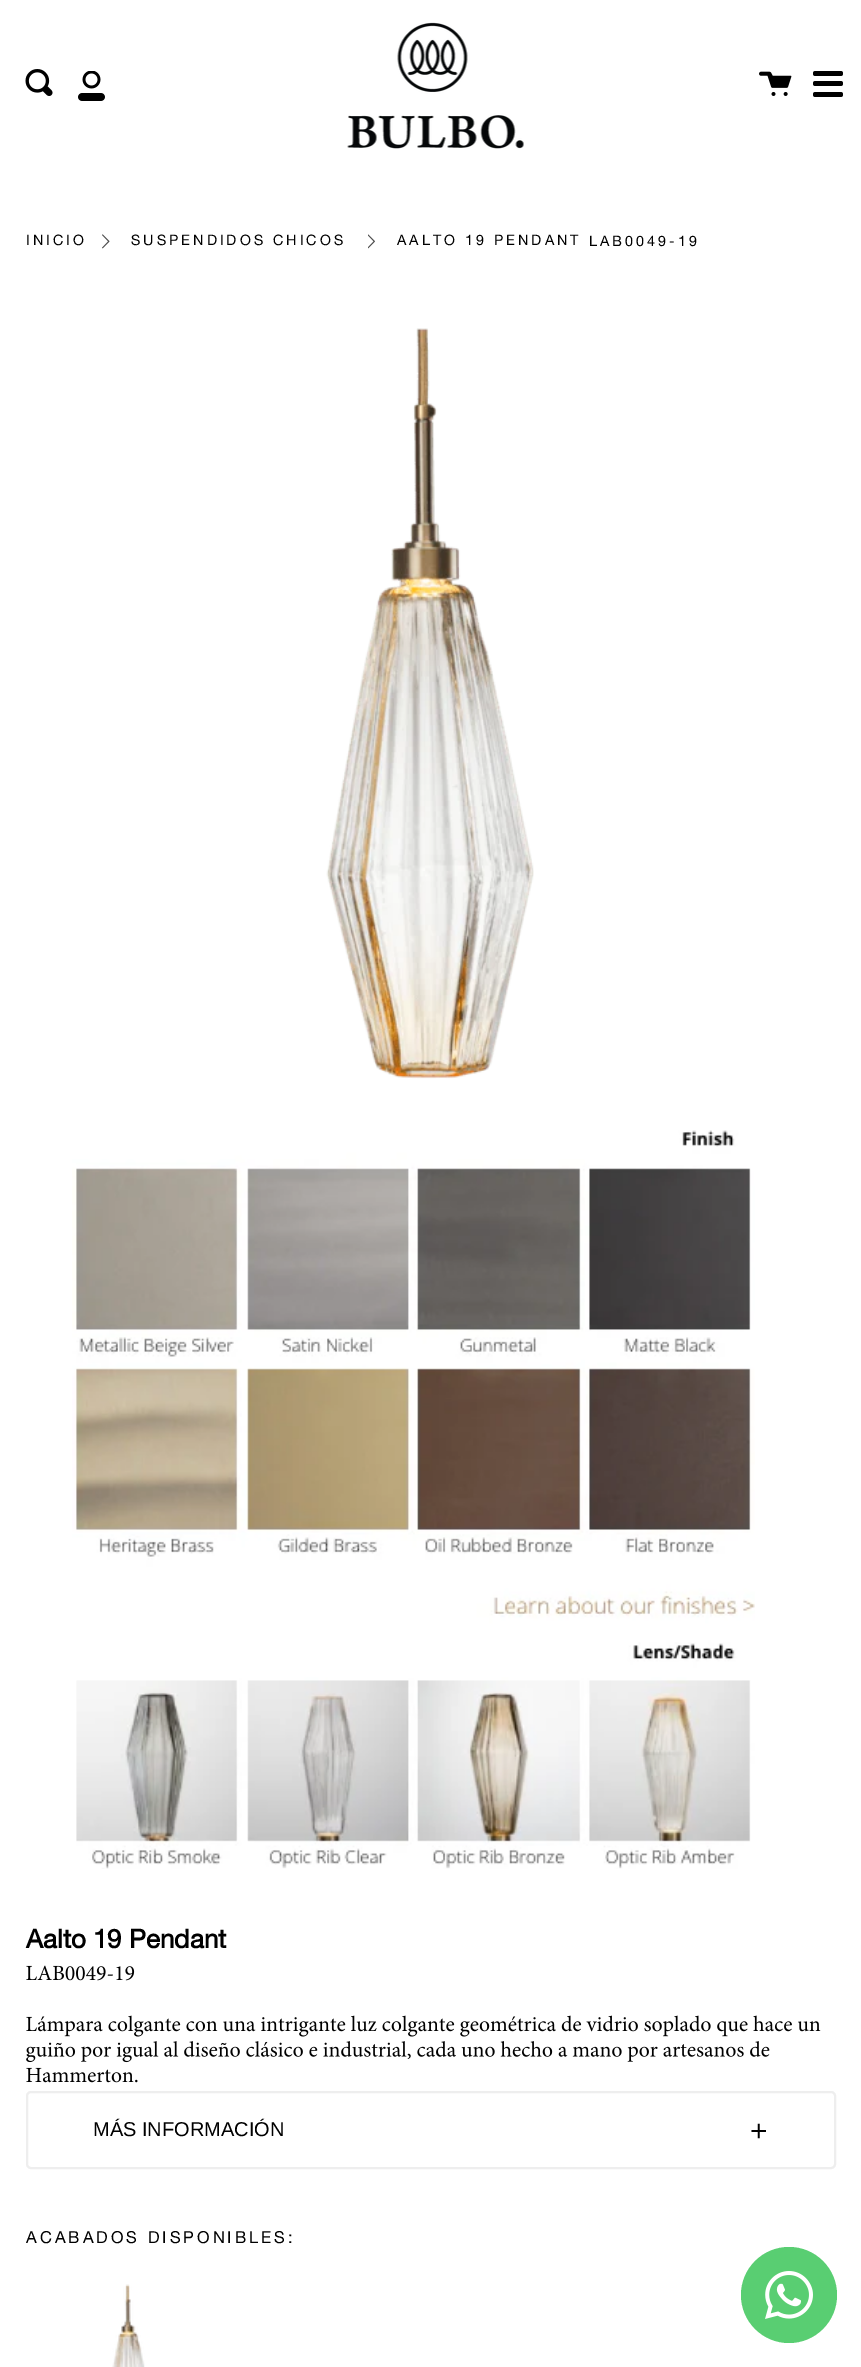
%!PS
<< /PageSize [861 2367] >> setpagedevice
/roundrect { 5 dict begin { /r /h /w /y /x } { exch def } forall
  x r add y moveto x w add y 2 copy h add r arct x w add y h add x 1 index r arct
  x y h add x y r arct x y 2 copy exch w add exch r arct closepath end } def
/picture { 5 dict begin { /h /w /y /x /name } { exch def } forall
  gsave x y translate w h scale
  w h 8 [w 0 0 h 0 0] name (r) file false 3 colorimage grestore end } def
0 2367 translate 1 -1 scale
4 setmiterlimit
1 setgray
0 0 861 2367 rectfill
(img1.rgb) 347 22 177 127 picture
(img2.rgb) 25 69 28 27 picture
(img3.rgb) 78 71 27 30 picture
(img4.rgb) 759 71 33 25 picture
0 setgray
newpath 815.5 71 moveto 839 71 lineto 839 76 lineto 815.5 76 lineto 814 76 813 75 813 73.5 curveto 813 72 814 71 815.5 71 curveto closepath fill
newpath 818 71 moveto 840.5 71 lineto 842 71 843 72 843 73.5 curveto 843 75 842 76 840.5 76 curveto 818 76 lineto closepath fill
newpath 815.5 81 moveto 839 81 lineto 839 86 lineto 815.5 86 lineto 814 86 813 85 813 83.5 curveto 813 82 814 81 815.5 81 curveto closepath fill
newpath 818 81 moveto 840.5 81 lineto 842 81 843 82 843 83.5 curveto 843 85 842 86 840.5 86 curveto 818 86 lineto closepath fill
newpath 815.5 92 moveto 839 92 lineto 839 97 lineto 815.5 97 lineto 814 97 813 96 813 94.5 curveto 813 93 814 92 815.5 92 curveto closepath fill
newpath 818 92 moveto 840.5 92 lineto 842 92 843 93 843 94.5 curveto 843 96 842 97 840.5 97 curveto 818 97 lineto closepath fill
/HelveticaNeue-Regular [14.4 0 0 -14.4 0 0] selectfont
26 245 moveto 3 0 (INICIO) ashow
(img5.rgb) 102 234 8 15 picture
131 245 moveto 3 0 (SUSPENDIDOS CHICOS) ashow
(img6.rgb) 368 234 7 15 picture
397 245 moveto 3 0 (AALTO 19 PENDANT) ashow
589 246 moveto 3 0 (LAB0049-19) ashow
(img7.rgb) 326 328 208 751 picture
(img8.rgb) 72 1130 683 739 picture
/HelveticaNeue-Bold [26 0 0 -26 0 0] selectfont
26 1948 moveto (Aalto 19 Pendant) show
(img9.rgb) 26 1965 109 16 picture
(img10.rgb) 26 2015 795 22 picture
(img11.rgb) 26 2041 744 22 picture
(img12.rgb) 26 2067 112 16 picture
0.933 setgray
2 setlinewidth
27 2092 808 76 4 roundrect stroke
/LiberationSans-Regular [20 0 0 -20 0 0] selectfont
0 setgray
93 2136 moveto (MÁS INFORMACIÓN) show
/LiberationSans-Regular [30 0 0 -30 0 0] selectfont
750 2141 moveto (+) show
/HelveticaNeue-Regular [16.5 0 0 -16.5 0 0] selectfont
26 2243 moveto 3 0 (ACABADOS DISPONIBLES:) ashow
(img13.rgb) 112 2284 33 83 picture
0.349 0.808 0.447 setrgbcolor
newpath 789 2295 48 0 360 arc closepath fill
(img14.rgb) 765 2271 48 48 picture
showpage
